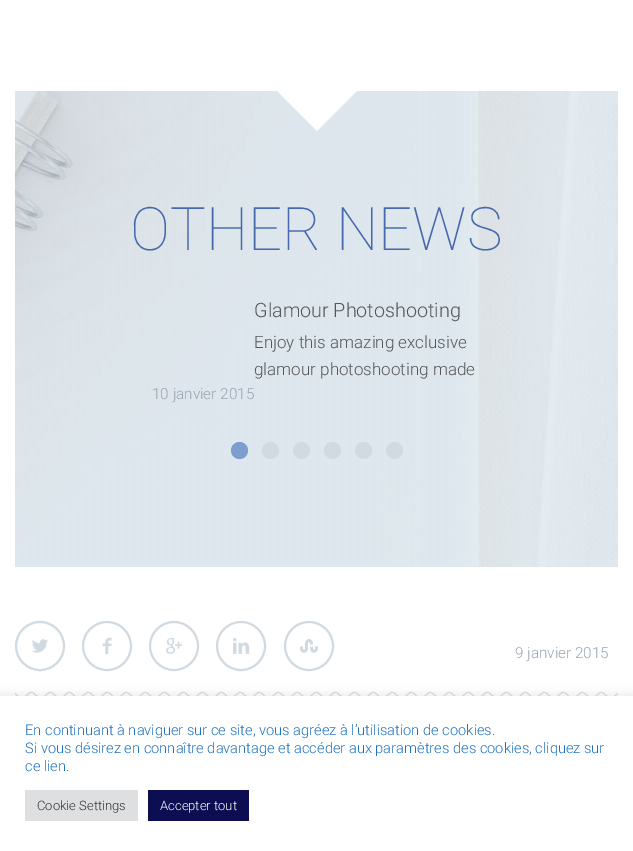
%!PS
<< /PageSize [633 851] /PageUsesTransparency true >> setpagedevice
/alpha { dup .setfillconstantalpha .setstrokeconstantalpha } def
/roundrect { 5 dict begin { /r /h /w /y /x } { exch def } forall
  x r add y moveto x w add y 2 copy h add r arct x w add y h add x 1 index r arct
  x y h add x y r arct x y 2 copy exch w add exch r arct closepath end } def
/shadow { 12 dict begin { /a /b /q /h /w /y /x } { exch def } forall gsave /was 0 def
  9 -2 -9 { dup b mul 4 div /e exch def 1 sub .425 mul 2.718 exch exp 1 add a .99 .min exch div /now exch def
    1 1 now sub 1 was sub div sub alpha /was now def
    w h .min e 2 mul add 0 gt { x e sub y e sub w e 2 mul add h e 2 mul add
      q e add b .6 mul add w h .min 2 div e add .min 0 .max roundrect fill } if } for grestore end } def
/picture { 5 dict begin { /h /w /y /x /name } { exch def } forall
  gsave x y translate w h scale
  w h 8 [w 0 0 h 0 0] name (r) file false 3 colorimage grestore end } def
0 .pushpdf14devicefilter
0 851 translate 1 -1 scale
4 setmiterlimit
1 setgray
0 0 633 851 rectfill
(img1.rgb) 15 91 603 476 picture
newpath 277 91 moveto 357 91 lineto 317 131 lineto closepath fill
/Roboto-Thin [60 0 0 -60 0 0] selectfont
0.278 0.408 0.675 setrgbcolor
130 250 moveto (OTHER NEWS) show
/Roboto-Light [19.75 0 0 -19.75 0 0] selectfont
0.341 0.341 0.337 setrgbcolor
254 317 moveto (Glamour Photoshooting) show
/Roboto-Light [17 0 0 -17 0 0] selectfont
254 348 moveto (Enjoy this amazing exclusive) show
254 375 moveto (glamour photoshooting made) show
/Roboto-Light [15.25 0 0 -15.25 0 0] selectfont
0.6 0.639 0.69 setrgbcolor
152 399 moveto (10 janvier 2015) show
0.49 0.612 0.816 setrgbcolor
newpath 239.5 450.5 8.5 0 360 arc closepath fill
0.824 0.855 0.882 setrgbcolor
newpath 270.5 450.5 8.5 0 360 arc closepath fill
newpath 301.5 450.5 8.5 0 360 arc closepath fill
newpath 332.5 450.5 8.5 0 360 arc closepath fill
newpath 363.5 450.5 8.5 0 360 arc closepath fill
newpath 394.5 450.5 8.5 0 360 arc closepath fill
2 setlinewidth
newpath 40 646 24 0 360 arc closepath stroke
(img2.rgb) 32 639 16 14 picture
newpath 107 646 24 0 360 arc closepath stroke
(img3.rgb) 102 637 10 17 picture
newpath 174 646 24 0 360 arc closepath stroke
(img4.rgb) 166 638 16 16 picture
newpath 241 646 24 0 360 arc closepath stroke
(img5.rgb) 233 638 17 16 picture
newpath 309 646 24 0 360 arc closepath stroke
(img6.rgb) 300 639 18 14 picture
0.6 0.639 0.69 setrgbcolor
515 658 moveto (9 janvier 2015) show
(img7.rgb) 15 691 603 5 picture
0.675 0.671 0.671 setrgbcolor
0 695 633 155 0 5 0.3 shadow
1 setgray
0 696 633 155 rectfill
/Roboto-Light [14.65 0 0 -14.65 0 0] selectfont
0.118 0.451 0.745 setrgbcolor
25 735 moveto (En continuant à naviguer sur ce site, vous agréez à l’utilisation de cookies.) show
25 753 moveto (Si vous désirez en connaître davantage et accéder aux paramètres des cookies, cliquez sur) show
25 771 moveto (ce lien.) show
0.871 0.875 0.878 setrgbcolor
25 790 113 31 rectfill
/Roboto-Light [13 0 0 -13 0 0] selectfont
0.2 setgray
37 810 moveto (Cookie Settings) show
0.051 0.055 0.318 setrgbcolor
148 790 101 31 rectfill
1 setgray
160 810 moveto (Accepter tout) show
.poppdf14devicefilter showpage
